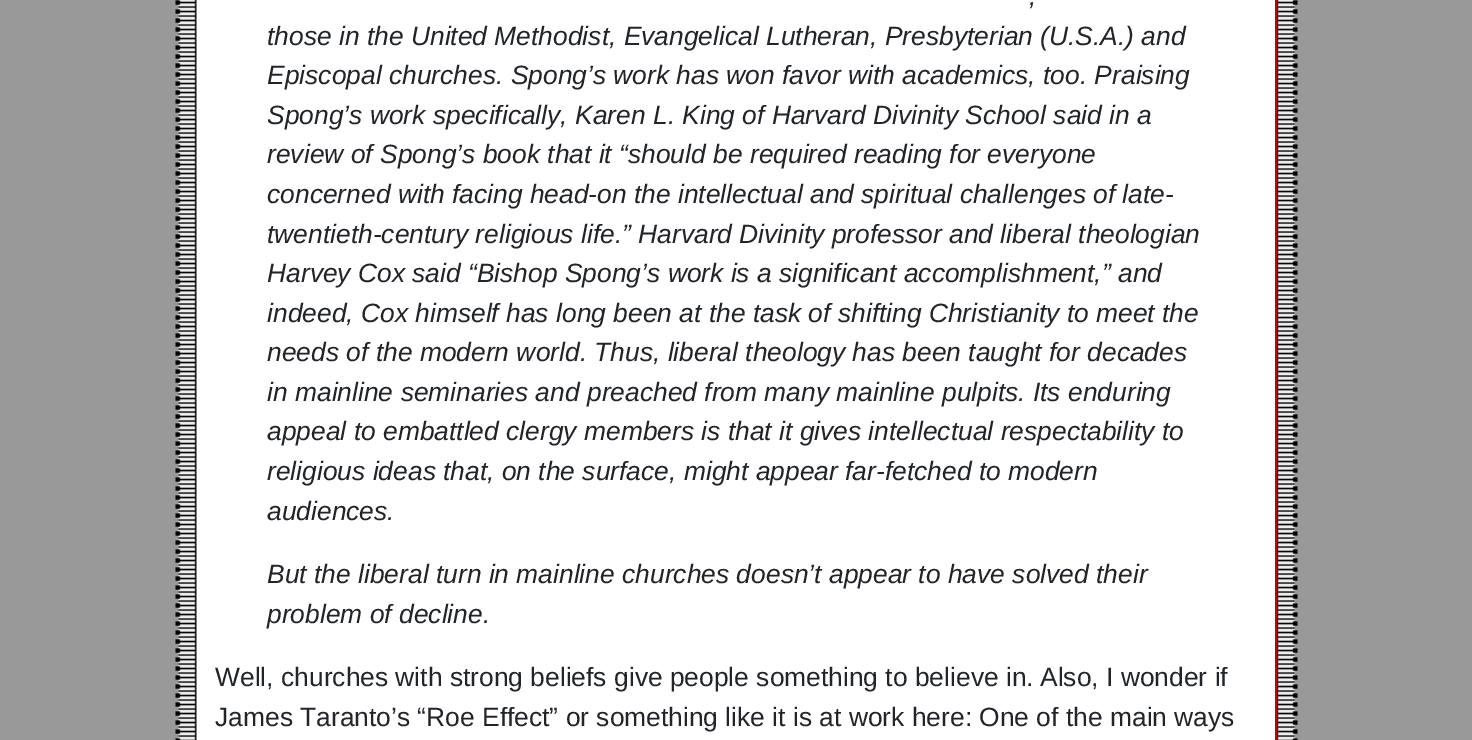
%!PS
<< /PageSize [1472 740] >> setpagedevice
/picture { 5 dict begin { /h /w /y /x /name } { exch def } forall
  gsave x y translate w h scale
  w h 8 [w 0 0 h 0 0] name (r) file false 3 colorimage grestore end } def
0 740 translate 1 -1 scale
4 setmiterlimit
0.6 setgray
0 0 1472 740 rectfill
(img1.rgb) 175 0 40 740 picture
1 setgray
215 0 1044 740 rectfill
(img2.rgb) 1259 0 39 740 picture
0.8 0 0 setrgbcolor
1275 0 2 740 rectfill
/LiberationSans-Italic [26.4 0 0 -26.4 0 0] selectfont
0.129 0.145 0.161 setrgbcolor
1029 5 moveto (,) show
267 45 moveto (those in the United Methodist, Evangelical Lutheran, Presbyterian \(U.S.A.\) and) show
267 84 moveto (Episcopal churches. Spong’s work has won favor with academics, too. Praising) show
267 124 moveto (Spong’s work specifically, Karen L. King of Harvard Divinity School said in a) show
267 163 moveto (review of Spong’s book that it “should be required reading for everyone) show
267 203 moveto (concerned with facing head-on the intellectual and spiritual challenges of late-) show
267 243 moveto (twentieth-century religious life.” Harvard Divinity professor and liberal theologian) show
267 282 moveto (Harvey Cox said “Bishop Spong’s work is a significant accomplishment,” and) show
267 322 moveto (indeed, Cox himself has long been at the task of shifting Christianity to meet the) show
267 361 moveto (needs of the modern world. Thus, liberal theology has been taught for decades) show
267 401 moveto (in mainline seminaries and preached from many mainline pulpits. Its enduring) show
267 440 moveto (appeal to embattled clergy members is that it gives intellectual respectability to) show
267 480 moveto (religious ideas that, on the surface, might appear far-fetched to modern) show
267 520 moveto (audiences.) show
267 583 moveto (But the liberal turn in mainline churches doesn’t appear to have solved their) show
267 623 moveto (problem of decline.) show
/LiberationSans-Regular [26.4 0 0 -26.4 0 0] selectfont
215 686 moveto (Well, churches with strong beliefs give people something to believe in.) show
1040 686 moveto (Also, I wonder if) show
215 726 moveto (James Taranto’s “Roe Effect” or something like it is at work here: One of the main ways) show
showpage
